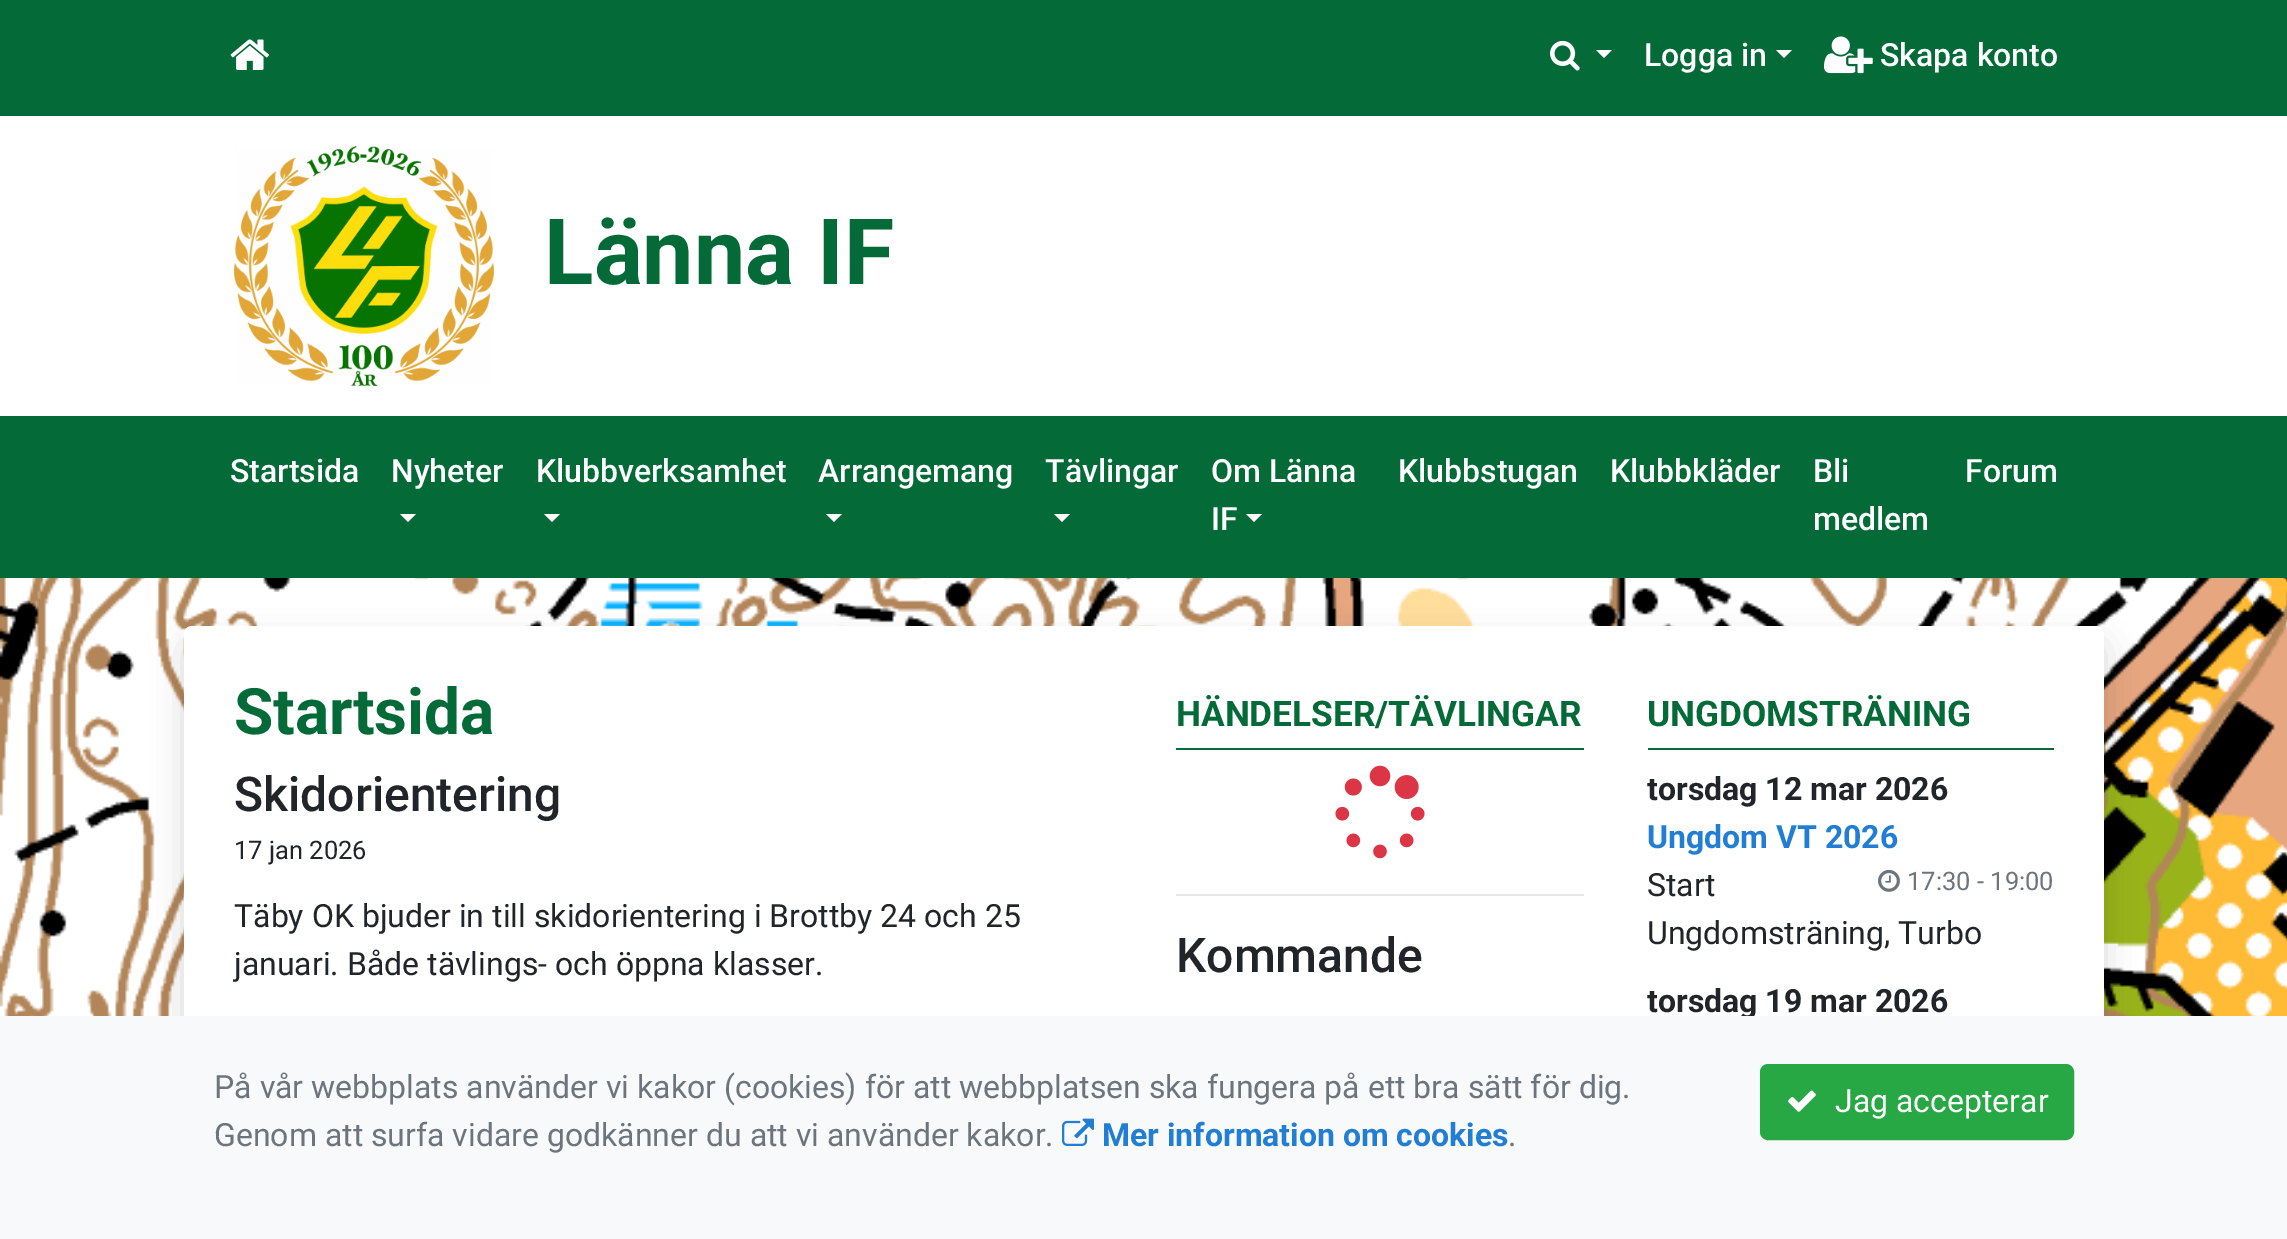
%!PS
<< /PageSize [2287 1239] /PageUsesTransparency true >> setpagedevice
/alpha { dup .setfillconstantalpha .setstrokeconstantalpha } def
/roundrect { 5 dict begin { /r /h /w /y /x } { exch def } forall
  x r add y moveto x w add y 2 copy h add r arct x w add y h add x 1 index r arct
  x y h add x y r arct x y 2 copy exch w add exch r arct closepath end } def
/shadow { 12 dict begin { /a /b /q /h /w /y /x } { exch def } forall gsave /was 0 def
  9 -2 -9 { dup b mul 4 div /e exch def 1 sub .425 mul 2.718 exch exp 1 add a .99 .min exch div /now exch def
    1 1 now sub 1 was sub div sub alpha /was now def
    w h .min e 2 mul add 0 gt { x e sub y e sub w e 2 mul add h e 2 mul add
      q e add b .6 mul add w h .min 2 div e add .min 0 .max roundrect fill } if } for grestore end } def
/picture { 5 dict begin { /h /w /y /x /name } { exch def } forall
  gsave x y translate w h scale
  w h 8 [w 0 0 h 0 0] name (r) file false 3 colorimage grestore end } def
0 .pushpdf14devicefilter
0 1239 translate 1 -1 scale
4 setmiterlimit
1 setgray
0 0 2287 1239 rectfill
(img1.rgb) 0 578 2287 438 picture
0.016 0.416 0.22 setrgbcolor
0 0 2287 116 rectfill
(img2.rgb) 230 39 39 31 picture
(img3.rgb) 1550 40 30 31 picture
1 setgray
newpath 1596 50 moveto 1612 50 lineto 1604 58 lineto closepath fill
/Roboto-Medium [32 0 0 -32 0 0] selectfont
1644 66 moveto (Logga in) show
newpath 1776 50 moveto 1792 50 lineto 1784 58 lineto closepath fill
(img4.rgb) 1824 36 49 38 picture
1880 66 moveto (Skapa konto) show
(img5.rgb) 234 146 260 240 picture
/Roboto-Bold [91.5 0 0 -91.5 0 0] selectfont
0.016 0.416 0.22 setrgbcolor
544 284 moveto (Länna IF) show
0 416 2287 162 rectfill
/Roboto-Medium [32 0 0 -32 0 0] selectfont
1 setgray
230 482 moveto (Startsida) show
391 482 moveto (Nyheter) show
newpath 400 514 moveto 416 514 lineto 408 522 lineto closepath fill
536 482 moveto (Klubbverksamhet) show
newpath 544 514 moveto 560 514 lineto 552 522 lineto closepath fill
818 482 moveto (Arrangemang) show
newpath 826 514 moveto 842 514 lineto 834 522 lineto closepath fill
1045 482 moveto (Tävlingar) show
newpath 1054 514 moveto 1070 514 lineto 1062 522 lineto closepath fill
1211 482 moveto (Om Länna) show
1211 530 moveto (IF) show
newpath 1246 514 moveto 1262 514 lineto 1254 522 lineto closepath fill
1398 482 moveto (Klubbstugan) show
1610 482 moveto (Klubbkläder) show
1813 482 moveto (Bli) show
1813 530 moveto (medlem) show
1965 482 moveto (Forum) show
0 setgray
184 642 1920 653 8 16 0.15 shadow
1 setgray
184 626 1920 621 8 roundrect fill
/Roboto-Bold [64 0 0 -64 0 0] selectfont
0.016 0.416 0.22 setrgbcolor
234 734 moveto (Startsida) show
/Roboto-Medium [48 0 0 -48 0 0] selectfont
0.129 0.145 0.161 setrgbcolor
234 811 moveto (Skidorientering) show
/Roboto-Regular [25.5 0 0 -25.5 0 0] selectfont
234 859 moveto (17 jan 2026) show
/Roboto-Regular [32 0 0 -32 0 0] selectfont
234 927 moveto (Täby OK bjuder in till skidorientering i Brottby 24 och 25) show
234 975 moveto (januari. Både tävlings- och öppna klasser.) show
0.016 0.416 0.22 setrgbcolor
1176 748 408 2 rectfill
/Roboto-Bold [35.25 0 0 -35.25 0 0] selectfont
1176 726 moveto (HÄNDELSER/TÄVLINGAR) show
(img6.rgb) 1335 765 90 94 picture
0.902 setgray
1176 894 408 2 rectfill
/Roboto-Medium [48 0 0 -48 0 0] selectfont
0.129 0.145 0.161 setrgbcolor
1176 972 moveto (Kommande) show
0.016 0.416 0.22 setrgbcolor
1648 748 406 2 rectfill
/Roboto-Bold [35.25 0 0 -35.25 0 0] selectfont
1647 726 moveto (UNGDOMSTRÄNING) show
/Roboto-Bold [32 0 0 -32 0 0] selectfont
0.129 0.145 0.161 setrgbcolor
1647 800 moveto (torsdag 12 mar 2026) show
0.129 0.494 0.824 setrgbcolor
1647 848 moveto (Ungdom VT 2026) show
/Roboto-Regular [32 0 0 -32 0 0] selectfont
0.129 0.145 0.161 setrgbcolor
1647 896 moveto (Start) show
(img7.rgb) 1878 869 22 23 picture
/Roboto-Regular [25.5 0 0 -25.5 0 0] selectfont
0.424 0.459 0.49 setrgbcolor
1907 890 moveto (17:30 - 19:00) show
/Roboto-Regular [32 0 0 -32 0 0] selectfont
0.129 0.145 0.161 setrgbcolor
1647 944 moveto (Ungdomsträning, Turbo) show
/Roboto-Bold [32 0 0 -32 0 0] selectfont
1647 1012 moveto (torsdag 19 mar 2026) show
0.973 0.976 0.98 setrgbcolor
0 1016 2287 223 rectfill
/Roboto-Regular [32 0 0 -32 0 0] selectfont
0.424 0.459 0.49 setrgbcolor
214 1098 moveto (På vår webbplats använder vi kakor \(cookies\) för att webbplatsen ska fungera på ett bra sätt för dig.) show
214 1146 moveto (Genom att surfa vidare godkänner du att vi använder kakor.) show
(img8.rgb) 1062 1118 32 28 picture
/Roboto-Bold [32 0 0 -32 0 0] selectfont
0.129 0.494 0.824 setrgbcolor
1102 1146 moveto (Mer information om cookies) show
/Roboto-Regular [32 0 0 -32 0 0] selectfont
0.424 0.459 0.49 setrgbcolor
1508 1146 moveto (.) show
0.157 0.655 0.271 setrgbcolor
1761 1065 312 74 7 roundrect gsave fill grestore
2 setlinewidth
stroke
(img9.rgb) 1788 1090 28 22 picture
1 setgray
1835 1112 moveto (Jag accepterar) show
.poppdf14devicefilter showpage
